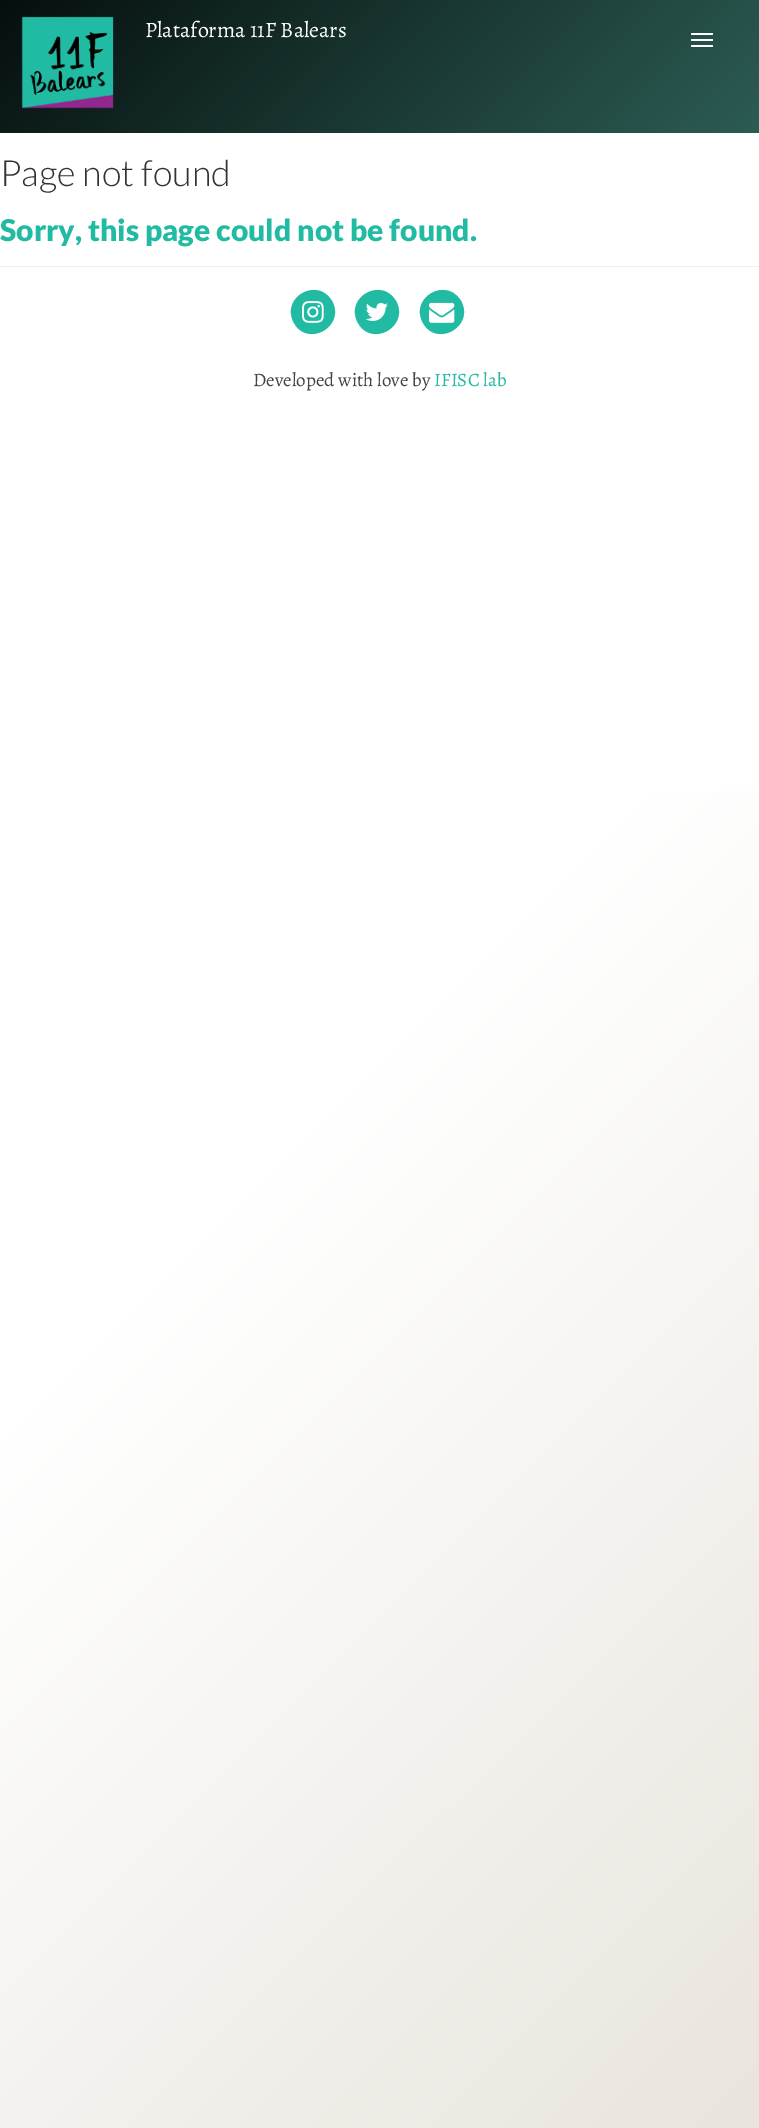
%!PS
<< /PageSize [759 2128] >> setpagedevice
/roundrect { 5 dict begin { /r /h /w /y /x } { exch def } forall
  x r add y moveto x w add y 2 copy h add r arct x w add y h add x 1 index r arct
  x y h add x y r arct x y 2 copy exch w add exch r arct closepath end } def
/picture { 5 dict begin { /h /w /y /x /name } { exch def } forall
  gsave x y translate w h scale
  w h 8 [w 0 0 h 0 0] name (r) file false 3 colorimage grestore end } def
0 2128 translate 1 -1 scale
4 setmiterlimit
1 setgray
0 0 759 2128 rectfill
gsave newpath 0 791 moveto 759 791 lineto 759 2128 lineto 0 2128 lineto closepath clip newpath
<< /ShadingType 2 /ColorSpace /DeviceRGB /Coords [-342 342 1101 1786] /Extend [true true] /Function << /FunctionType 3 /Domain [0 1] /Functions [<< /FunctionType 2 /Domain [0 1] /C0 [1 1 1] /C1 [1 1 1] /N 1 >> << /FunctionType 2 /Domain [0 1] /C0 [1 1 1] /C1 [0.914 0.894 0.867] /N 1 >>] /Bounds [0.5] /Encode [0 1 0 1] >> >> shfill grestore
gsave newpath 0 0 moveto 759 0 lineto 759 133 lineto 0 133 lineto closepath clip newpath
<< /ShadingType 2 /ColorSpace /DeviceRGB /Coords [157 -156 603 290] /Extend [true true] /Function << /FunctionType 2 /Domain [0 1] /C0 [0.024 0.059 0.059] /C1 [0.173 0.361 0.329] /N 1 >> >> shfill grestore
(img1.rgb) 21 16 93 93 picture
/Alegreya-Regular [22 0 0 -22 0 0] selectfont
145 37 moveto (Plataforma 11F Balears) show
691 33 22 2 1 roundrect fill
691 39 22 2 1 roundrect fill
691 45 22 2 1 roundrect fill
/Lato-Light [36 0 0 -36 0 0] selectfont
0.2 setgray
0 186 moveto (Page not found) show
/Lato-Black [30 0 0 -30 0 0] selectfont
0.129 0.733 0.639 setrgbcolor
0 241 moveto (Sorry, this page could not be found.) show
0.933 setgray
0 266 759 1 rectfill
0.129 0.733 0.639 setrgbcolor
newpath 332 301 moveto 346 326 308 348 294 323 curveto 280 298 317 276 332 301 curveto closepath fill
(img2.rgb) 302 301 22 22 picture
newpath 396 301 moveto 410 326 372 348 358 323 curveto 344 298 381 276 396 301 curveto closepath fill
(img3.rgb) 365 302 23 19 picture
newpath 461 301 moveto 475 326 437 348 423 323 curveto 409 298 446 276 461 301 curveto closepath fill
(img4.rgb) 429 302 26 21 picture
/Alegreya-Regular [19 0 0 -19 0 0] selectfont
0.267 setgray
253 386 moveto (Developed with love by) show
0.129 0.733 0.639 setrgbcolor
434 386 moveto (IFISC lab) show
showpage
